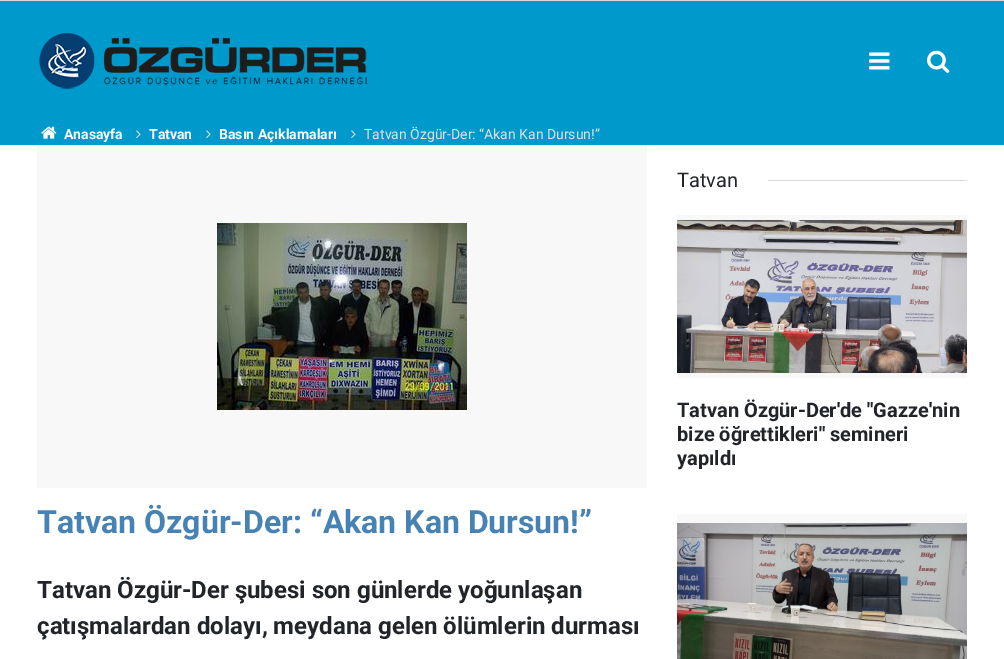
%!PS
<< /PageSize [1004 659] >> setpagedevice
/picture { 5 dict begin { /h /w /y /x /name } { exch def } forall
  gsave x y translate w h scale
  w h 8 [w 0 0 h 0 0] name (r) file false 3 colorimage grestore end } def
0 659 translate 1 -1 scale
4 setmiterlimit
1 setgray
0 0 1004 659 rectfill
0 0.6 0.8 setrgbcolor
0 1 1004 144 rectfill
0.843 0.855 0.882 setrgbcolor
0 0 1004 1 rectfill
(img1.rgb) 39 33 328 56 picture
(img2.rgb) 869 52 21 18 picture
(img3.rgb) 927 50 23 23 picture
(img4.rgb) 41 126 16 13 picture
/Roboto-Bold [14 0 0 -14 0 0] selectfont
1 setgray
64 139 moveto (Anasayfa) show
(img5.rgb) 136 130 5 9 picture
149 139 moveto (Tatvan) show
(img5.rgb) 206 130 5 9 picture
219 139 moveto (Basın Açıklamaları) show
(img5.rgb) 351 130 5 9 picture
/Roboto-Regular [14 0 0 -14 0 0] selectfont
0.886 0.878 0.878 setrgbcolor
364 139 moveto (Tatvan Özgür-Der: “Akan Kan Dursun!”) show
/Roboto-Regular [20 0 0 -20 0 0] selectfont
0.129 0.145 0.161 setrgbcolor
677 187 moveto (Tatvan) show
0.851 0.859 0.886 setrgbcolor
768 180 199 1 rectfill
0.973 setgray
677 215 290 163 rectfill
(img6.rgb) 677 220 290 153 picture
/Roboto-Bold [20 0 0 -20 0 0] selectfont
0.129 0.145 0.161 setrgbcolor
677 417 moveto (Tatvan Özgür-Der'de "Gazze'nin) show
677 441 moveto (bize öğrettikleri" semineri) show
677 465 moveto (yapıldı) show
0.973 setgray
677 514 290 9 rectfill
(img7.rgb) 677 523 290 136 picture
37 145 610 343 rectfill
(img8.rgb) 217 223 250 187 picture
/Roboto-Bold [32 0 0 -32 0 0] selectfont
0.275 0.51 0.706 setrgbcolor
37 533 moveto (Tatvan Özgür-Der: “Akan Kan Dursun!”) show
/Roboto-Bold [24 0 0 -24 0 0] selectfont
0.129 0.145 0.161 setrgbcolor
37 598 moveto (Tatvan Özgür-Der şubesi son günlerde yoğunlaşan) show
37 634 moveto (çatışmalardan dolayı, meydana gelen ölümlerin durması) show
showpage
